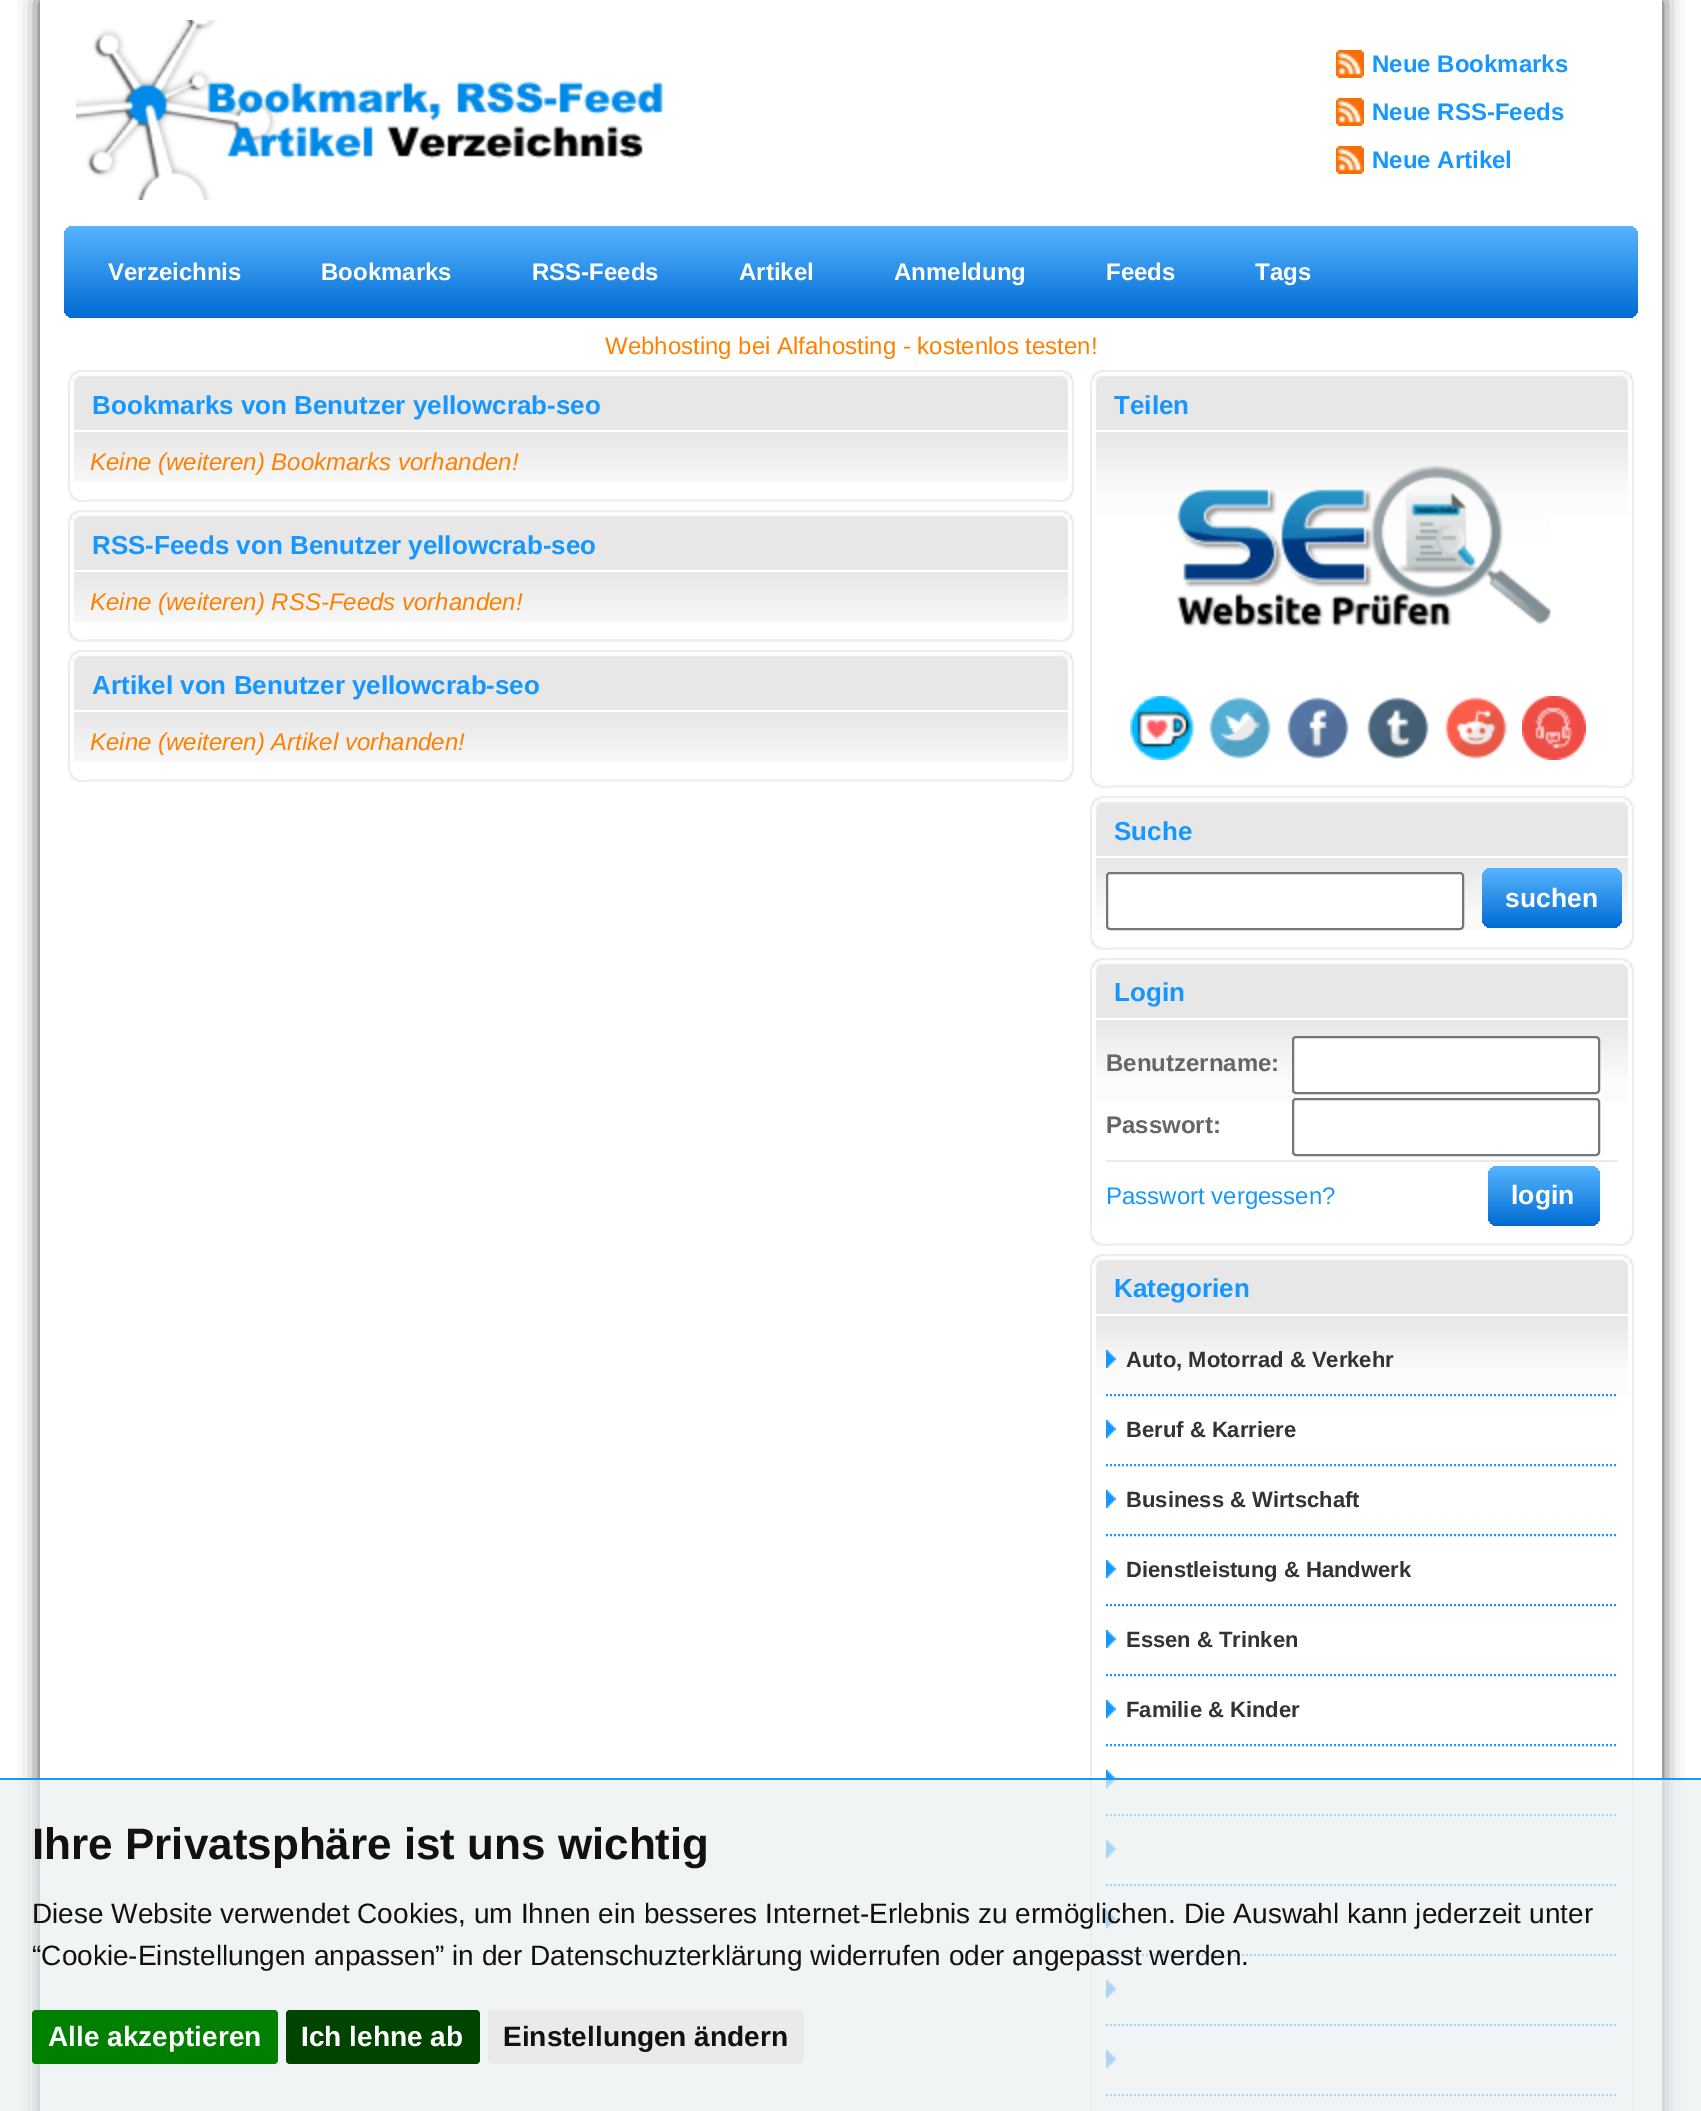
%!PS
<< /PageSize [1701 2111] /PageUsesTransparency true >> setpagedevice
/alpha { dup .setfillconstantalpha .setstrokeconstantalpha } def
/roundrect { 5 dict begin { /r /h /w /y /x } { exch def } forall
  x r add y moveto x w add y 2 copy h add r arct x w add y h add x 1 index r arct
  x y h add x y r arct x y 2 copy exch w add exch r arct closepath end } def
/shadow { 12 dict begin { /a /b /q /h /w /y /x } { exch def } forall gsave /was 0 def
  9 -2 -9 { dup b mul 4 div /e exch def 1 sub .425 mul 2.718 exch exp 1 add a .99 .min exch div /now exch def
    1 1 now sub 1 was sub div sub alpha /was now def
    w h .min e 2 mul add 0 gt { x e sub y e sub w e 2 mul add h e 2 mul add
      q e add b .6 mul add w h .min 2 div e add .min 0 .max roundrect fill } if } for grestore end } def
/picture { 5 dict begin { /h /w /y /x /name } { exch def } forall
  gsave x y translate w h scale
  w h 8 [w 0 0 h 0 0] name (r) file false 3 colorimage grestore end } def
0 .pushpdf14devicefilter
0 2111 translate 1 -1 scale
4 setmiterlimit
1 setgray
0 0 1701 2111 rectfill
gsave
newpath 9 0 moveto 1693 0 lineto 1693 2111 lineto 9 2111 lineto closepath 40 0 moveto 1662 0 lineto 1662 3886 lineto 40 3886 lineto closepath eoclip newpath
0.224 0.224 0.235 setrgbcolor
40 0 1622 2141 0 10 1 shadow
grestore
(img1.rgb) 76 20 587 180 picture
(img2.rgb) 1336 50 28 28 picture
/LiberationSans-Bold [24 0 0 -24 0 0] selectfont
0.082 0.592 1 setrgbcolor
1372 72 moveto (Neue Bookmarks) show
(img2.rgb) 1336 98 28 28 picture
1372 120 moveto (Neue RSS-Feeds) show
(img2.rgb) 1336 146 28 28 picture
1372 168 moveto (Neue Artikel) show
gsave 64 226 1574 92 10 roundrect clip newpath
<< /ShadingType 2 /ColorSpace /DeviceRGB /Coords [851 226 851 318] /Extend [true true] /Function << /FunctionType 2 /Domain [0 1] /C0 [0.341 0.71 1] /C1 [0 0.42 0.827] /N 1 >> >> shfill grestore
1 setgray
108 280 moveto (Verzeichnis) show
321 280 moveto (Bookmarks) show
532 280 moveto (RSS-Feeds) show
739 280 moveto (Artikel) show
894 280 moveto (Anmeldung) show
1106 280 moveto (Feeds) show
1255 280 moveto (Tags) show
/LiberationSans-Regular [24 0 0 -24 0 0] selectfont
1 0.498 0 setrgbcolor
605 354 moveto (Webhosting bei Alfahosting - kostenlos testen!) show
(img3.rgb) 68 370 20 20 picture
(img4.rgb) 1054 370 20 20 picture
(img5.rgb) 88 370 966 20 picture
0.922 0.925 0.918 setrgbcolor
1072 390 2 92 rectfill
68 390 2 92 rectfill
0.906 setgray
74 390 994 40 rectfill
/LiberationSans-Bold [26 0 0 -26 0 0] selectfont
0.082 0.592 1 setrgbcolor
92 414 moveto (Bookmarks von Benutzer yellowcrab-seo) show
gsave newpath 74 432 moveto 1068 432 lineto 1068 482 lineto 74 482 lineto closepath clip newpath
<< /ShadingType 2 /ColorSpace /DeviceRGB /Coords [571 432 571 552] /Extend [true true] /Function << /FunctionType 3 /Domain [0 1] /Functions [<< /FunctionType 2 /Domain [0 1] /C0 [0.906 0.906 0.906] /C1 [0.984 0.984 0.984] /N 1 >> << /FunctionType 2 /Domain [0 1] /C0 [0.984 0.984 0.984] /C1 [1 1 1] /N 1 >>] /Bounds [0.5] /Encode [0 1 0 1] >> >> shfill grestore
/LiberationSans-Italic [24 0 0 -24 0 0] selectfont
1 0.498 0 setrgbcolor
90 470 moveto (Keine \(weiteren\) Bookmarks vorhanden!) show
(img6.rgb) 68 482 20 20 picture
(img7.rgb) 1054 482 20 20 picture
0.941 0.945 0.937 setrgbcolor
88 499 966 3 rectfill
(img3.rgb) 68 510 20 20 picture
(img4.rgb) 1054 510 20 20 picture
(img5.rgb) 88 510 966 20 picture
0.922 0.925 0.918 setrgbcolor
1072 530 2 92 rectfill
68 530 2 92 rectfill
0.906 setgray
74 530 994 40 rectfill
/LiberationSans-Bold [26 0 0 -26 0 0] selectfont
0.082 0.592 1 setrgbcolor
92 554 moveto (RSS-Feeds von Benutzer yellowcrab-seo) show
gsave newpath 74 572 moveto 1068 572 lineto 1068 622 lineto 74 622 lineto closepath clip newpath
<< /ShadingType 2 /ColorSpace /DeviceRGB /Coords [571 572 571 692] /Extend [true true] /Function << /FunctionType 3 /Domain [0 1] /Functions [<< /FunctionType 2 /Domain [0 1] /C0 [0.906 0.906 0.906] /C1 [0.984 0.984 0.984] /N 1 >> << /FunctionType 2 /Domain [0 1] /C0 [0.984 0.984 0.984] /C1 [1 1 1] /N 1 >>] /Bounds [0.5] /Encode [0 1 0 1] >> >> shfill grestore
/LiberationSans-Italic [24 0 0 -24 0 0] selectfont
1 0.498 0 setrgbcolor
90 610 moveto (Keine \(weiteren\) RSS-Feeds vorhanden!) show
(img6.rgb) 68 622 20 20 picture
(img7.rgb) 1054 622 20 20 picture
0.941 0.945 0.937 setrgbcolor
88 639 966 3 rectfill
(img3.rgb) 68 650 20 20 picture
(img4.rgb) 1054 650 20 20 picture
(img5.rgb) 88 650 966 20 picture
0.922 0.925 0.918 setrgbcolor
1072 670 2 92 rectfill
68 670 2 92 rectfill
0.906 setgray
74 670 994 40 rectfill
/LiberationSans-Bold [26 0 0 -26 0 0] selectfont
0.082 0.592 1 setrgbcolor
92 694 moveto (Artikel von Benutzer yellowcrab-seo) show
gsave newpath 74 712 moveto 1068 712 lineto 1068 762 lineto 74 762 lineto closepath clip newpath
<< /ShadingType 2 /ColorSpace /DeviceRGB /Coords [571 712 571 832] /Extend [true true] /Function << /FunctionType 3 /Domain [0 1] /Functions [<< /FunctionType 2 /Domain [0 1] /C0 [0.906 0.906 0.906] /C1 [0.984 0.984 0.984] /N 1 >> << /FunctionType 2 /Domain [0 1] /C0 [0.984 0.984 0.984] /C1 [1 1 1] /N 1 >>] /Bounds [0.5] /Encode [0 1 0 1] >> >> shfill grestore
/LiberationSans-Italic [24 0 0 -24 0 0] selectfont
1 0.498 0 setrgbcolor
90 750 moveto (Keine \(weiteren\) Artikel vorhanden!) show
(img6.rgb) 68 762 20 20 picture
(img7.rgb) 1054 762 20 20 picture
0.941 0.945 0.937 setrgbcolor
88 779 966 3 rectfill
(img3.rgb) 1090 370 20 20 picture
(img4.rgb) 1614 370 20 20 picture
(img8.rgb) 1110 370 504 20 picture
0.922 0.925 0.918 setrgbcolor
1632 390 2 378 rectfill
1090 390 2 378 rectfill
0.906 setgray
1096 390 532 40 rectfill
/LiberationSans-Bold [26 0 0 -26 0 0] selectfont
0.082 0.592 1 setrgbcolor
1114 414 moveto (Teilen) show
gsave newpath 1096 432 moveto 1628 432 lineto 1628 515 lineto 1096 515 lineto closepath clip newpath
<< /ShadingType 2 /ColorSpace /DeviceRGB /Coords [1362 432 1362 768] /Extend [true true] /Function << /FunctionType 3 /Domain [0 1] /Functions [<< /FunctionType 2 /Domain [0 1] /C0 [0.906 0.906 0.906] /C1 [0.984 0.984 0.984] /N 1 >> << /FunctionType 2 /Domain [0 1] /C0 [0.984 0.984 0.984] /C1 [1 1 1] /N 1 >> << /FunctionType 2 /Domain [0 1] /C0 [1 1 1] /C1 [1 1 1] /N 1 >>] /Bounds [0.18 0.36] /Encode [0 1 0 1 0 1] >> >> shfill grestore
(img9.rgb) 1177 466 374 162 picture
(img10.rgb) 1130 696 64 64 picture
(img11.rgb) 1209 697 62 62 picture
(img12.rgb) 1287 697 62 62 picture
(img13.rgb) 1367 697 62 62 picture
(img14.rgb) 1445 697 62 62 picture
(img15.rgb) 1522 696 64 64 picture
(img6.rgb) 1090 768 20 20 picture
(img7.rgb) 1614 768 20 20 picture
0.941 0.945 0.937 setrgbcolor
1110 785 504 3 rectfill
(img3.rgb) 1090 796 20 20 picture
(img4.rgb) 1614 796 20 20 picture
(img8.rgb) 1110 796 504 20 picture
0.922 0.925 0.918 setrgbcolor
1632 816 2 114 rectfill
1090 816 2 114 rectfill
0.906 setgray
1096 816 532 40 rectfill
0.082 0.592 1 setrgbcolor
1114 840 moveto (Suche) show
gsave newpath 1096 858 moveto 1628 858 lineto 1628 930 lineto 1096 930 lineto closepath clip newpath
<< /ShadingType 2 /ColorSpace /DeviceRGB /Coords [1362 858 1362 978] /Extend [true true] /Function << /FunctionType 3 /Domain [0 1] /Functions [<< /FunctionType 2 /Domain [0 1] /C0 [0.906 0.906 0.906] /C1 [0.984 0.984 0.984] /N 1 >> << /FunctionType 2 /Domain [0 1] /C0 [0.984 0.984 0.984] /C1 [1 1 1] /N 1 >>] /Bounds [0.5] /Encode [0 1 0 1] >> >> shfill grestore
1 setgray
1107 873 356 56 3 roundrect gsave fill grestore
0.463 setgray
2 setlinewidth
stroke
gsave 1482 868 140 60 10 roundrect clip newpath
<< /ShadingType 2 /ColorSpace /DeviceRGB /Coords [1552 868 1552 928] /Extend [true true] /Function << /FunctionType 2 /Domain [0 1] /C0 [0.341 0.71 1] /C1 [0 0.42 0.827] /N 1 >> >> shfill grestore
/LiberationSans-Bold [26.5 0 0 -26.5 0 0] selectfont
1 setgray
1505 907 moveto (suchen) show
(img6.rgb) 1090 930 20 20 picture
(img7.rgb) 1614 930 20 20 picture
0.941 0.945 0.937 setrgbcolor
1110 947 504 3 rectfill
(img3.rgb) 1090 958 20 20 picture
(img4.rgb) 1614 958 20 20 picture
(img16.rgb) 1110 958 504 20 picture
0.922 0.925 0.918 setrgbcolor
1632 978 2 248 rectfill
1090 978 2 248 rectfill
0.906 setgray
1096 978 532 40 rectfill
/LiberationSans-Bold [26 0 0 -26 0 0] selectfont
0.082 0.592 1 setrgbcolor
1114 1001 moveto (Login) show
gsave newpath 1096 1020 moveto 1628 1020 lineto 1628 1102 lineto 1096 1102 lineto closepath clip newpath
<< /ShadingType 2 /ColorSpace /DeviceRGB /Coords [1362 1020 1362 1226] /Extend [true true] /Function << /FunctionType 3 /Domain [0 1] /Functions [<< /FunctionType 2 /Domain [0 1] /C0 [0.906 0.906 0.906] /C1 [0.984 0.984 0.984] /N 1 >> << /FunctionType 2 /Domain [0 1] /C0 [0.984 0.984 0.984] /C1 [1 1 1] /N 1 >> << /FunctionType 2 /Domain [0 1] /C0 [1 1 1] /C1 [1 1 1] /N 1 >>] /Bounds [0.29 0.58] /Encode [0 1 0 1 0 1] >> >> shfill grestore
/LiberationSans-Bold [24 0 0 -24 0 0] selectfont
0.4 setgray
1106 1071 moveto (Benutzername:) show
1 setgray
1293 1037 306 56 3 roundrect gsave fill grestore
0.463 setgray
stroke
0.4 setgray
1106 1133 moveto (Passwort:) show
1 setgray
1293 1099 306 56 3 roundrect gsave fill grestore
0.463 setgray
stroke
0.922 0.925 0.918 setrgbcolor
1106 1160 512 2 rectfill
/LiberationSans-Regular [24 0 0 -24 0 0] selectfont
0.082 0.592 1 setrgbcolor
1106 1204 moveto (Passwort vergessen?) show
gsave 1488 1166 112 60 10 roundrect clip newpath
<< /ShadingType 2 /ColorSpace /DeviceRGB /Coords [1544 1166 1544 1226] /Extend [true true] /Function << /FunctionType 2 /Domain [0 1] /C0 [0.341 0.71 1] /C1 [0 0.42 0.827] /N 1 >> >> shfill grestore
/LiberationSans-Bold [26.5 0 0 -26.5 0 0] selectfont
1 setgray
1511 1204 moveto (login) show
(img6.rgb) 1090 1226 20 20 picture
(img7.rgb) 1614 1226 20 20 picture
0.941 0.945 0.937 setrgbcolor
1110 1243 504 3 rectfill
(img3.rgb) 1090 1254 20 20 picture
(img4.rgb) 1614 1254 20 20 picture
(img16.rgb) 1110 1254 504 20 picture
0.922 0.925 0.918 setrgbcolor
1632 1274 2 837 rectfill
1090 1274 2 837 rectfill
0.906 setgray
1096 1274 532 40 rectfill
/LiberationSans-Bold [26 0 0 -26 0 0] selectfont
0.082 0.592 1 setrgbcolor
1114 1297 moveto (Kategorien) show
gsave newpath 1096 1316 moveto 1628 1316 lineto 1628 1395 lineto 1096 1395 lineto closepath clip newpath
<< /ShadingType 2 /ColorSpace /DeviceRGB /Coords [1362 1316 1362 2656] /Extend [true true] /Function << /FunctionType 3 /Domain [0 1] /Functions [<< /FunctionType 2 /Domain [0 1] /C0 [0.906 0.906 0.906] /C1 [0.984 0.984 0.984] /N 1 >> << /FunctionType 2 /Domain [0 1] /C0 [0.984 0.984 0.984] /C1 [1 1 1] /N 1 >> << /FunctionType 2 /Domain [0 1] /C0 [1 1 1] /C1 [1 1 1] /N 1 >>] /Bounds [0.04 0.09] /Encode [0 1 0 1 0 1] >> >> shfill grestore
(img17.rgb) 1106 1350 10 18 picture
[2 2] 0 setdash
newpath 1106 1395 moveto 1618 1395 lineto stroke
/LiberationSans-Bold [22 0 0 -22 0 0] selectfont
0.2 setgray
1126 1367 moveto (Auto, Motorrad & Verkehr) show
(img18.rgb) 1106 1420 10 18 picture
0.082 0.592 1 setrgbcolor
newpath 1106 1465 moveto 1618 1465 lineto stroke
0.2 setgray
1126 1437 moveto (Beruf & Karriere) show
(img19.rgb) 1106 1490 10 18 picture
0.082 0.592 1 setrgbcolor
newpath 1106 1535 moveto 1618 1535 lineto stroke
0.2 setgray
1126 1507 moveto (Business & Wirtschaft) show
(img19.rgb) 1106 1560 10 18 picture
0.082 0.592 1 setrgbcolor
newpath 1106 1605 moveto 1618 1605 lineto stroke
0.2 setgray
1126 1577 moveto (Dienstleistung & Handwerk) show
(img19.rgb) 1106 1630 10 18 picture
0.082 0.592 1 setrgbcolor
newpath 1106 1675 moveto 1618 1675 lineto stroke
0.2 setgray
1126 1647 moveto (Essen & Trinken) show
(img19.rgb) 1106 1700 10 18 picture
0.082 0.592 1 setrgbcolor
newpath 1106 1745 moveto 1618 1745 lineto stroke
0.2 setgray
1126 1717 moveto (Familie & Kinder) show
(img19.rgb) 1106 1770 10 18 picture
0.082 0.592 1 setrgbcolor
newpath 1106 1815 moveto 1618 1815 lineto stroke
(img19.rgb) 1106 1840 10 18 picture
newpath 1106 1885 moveto 1618 1885 lineto stroke
(img19.rgb) 1106 1910 10 18 picture
newpath 1106 1955 moveto 1618 1955 lineto stroke
(img19.rgb) 1106 1980 10 18 picture
newpath 1106 2025 moveto 1618 2025 lineto stroke
(img19.rgb) 1106 2050 10 18 picture
newpath 1106 2095 moveto 1618 2095 lineto stroke
0.7 alpha
0.918 0.937 0.945 setrgbcolor
0 1780 1701 331 rectfill
1 alpha
0.082 0.592 1 setrgbcolor
0 1778 1701 2 rectfill
/LiberationSans-Bold [44 0 0 -44 0 0] selectfont
0.067 setgray
32 1859 moveto (Ihre Privatsphäre ist uns wichtig) show
/LiberationSans-Regular [28 0 0 -28 0 0] selectfont
32 1923 moveto (Diese Website verwendet Cookies, um Ihnen ein besseres Internet-Erlebnis zu ermöglichen. Die Auswahl kann jederzeit unter) show
32 1965 moveto (“Cookie-Einstellungen anpassen” in der Datenschuzterklärung widerrufen oder angepasst werden.) show
0 0.502 0 setrgbcolor
32 2010 246 54 4 roundrect fill
/LiberationSans-Bold [28 0 0 -28 0 0] selectfont
1 setgray
48 2046 moveto (Alle akzeptieren) show
0 0.267 0 setrgbcolor
286 2010 194 54 4 roundrect fill
1 setgray
301 2046 moveto (Ich lehne ab) show
0.918 setgray
488 2010 316 54 4 roundrect fill
0.067 setgray
503 2046 moveto (Einstellungen ändern) show
.poppdf14devicefilter showpage
